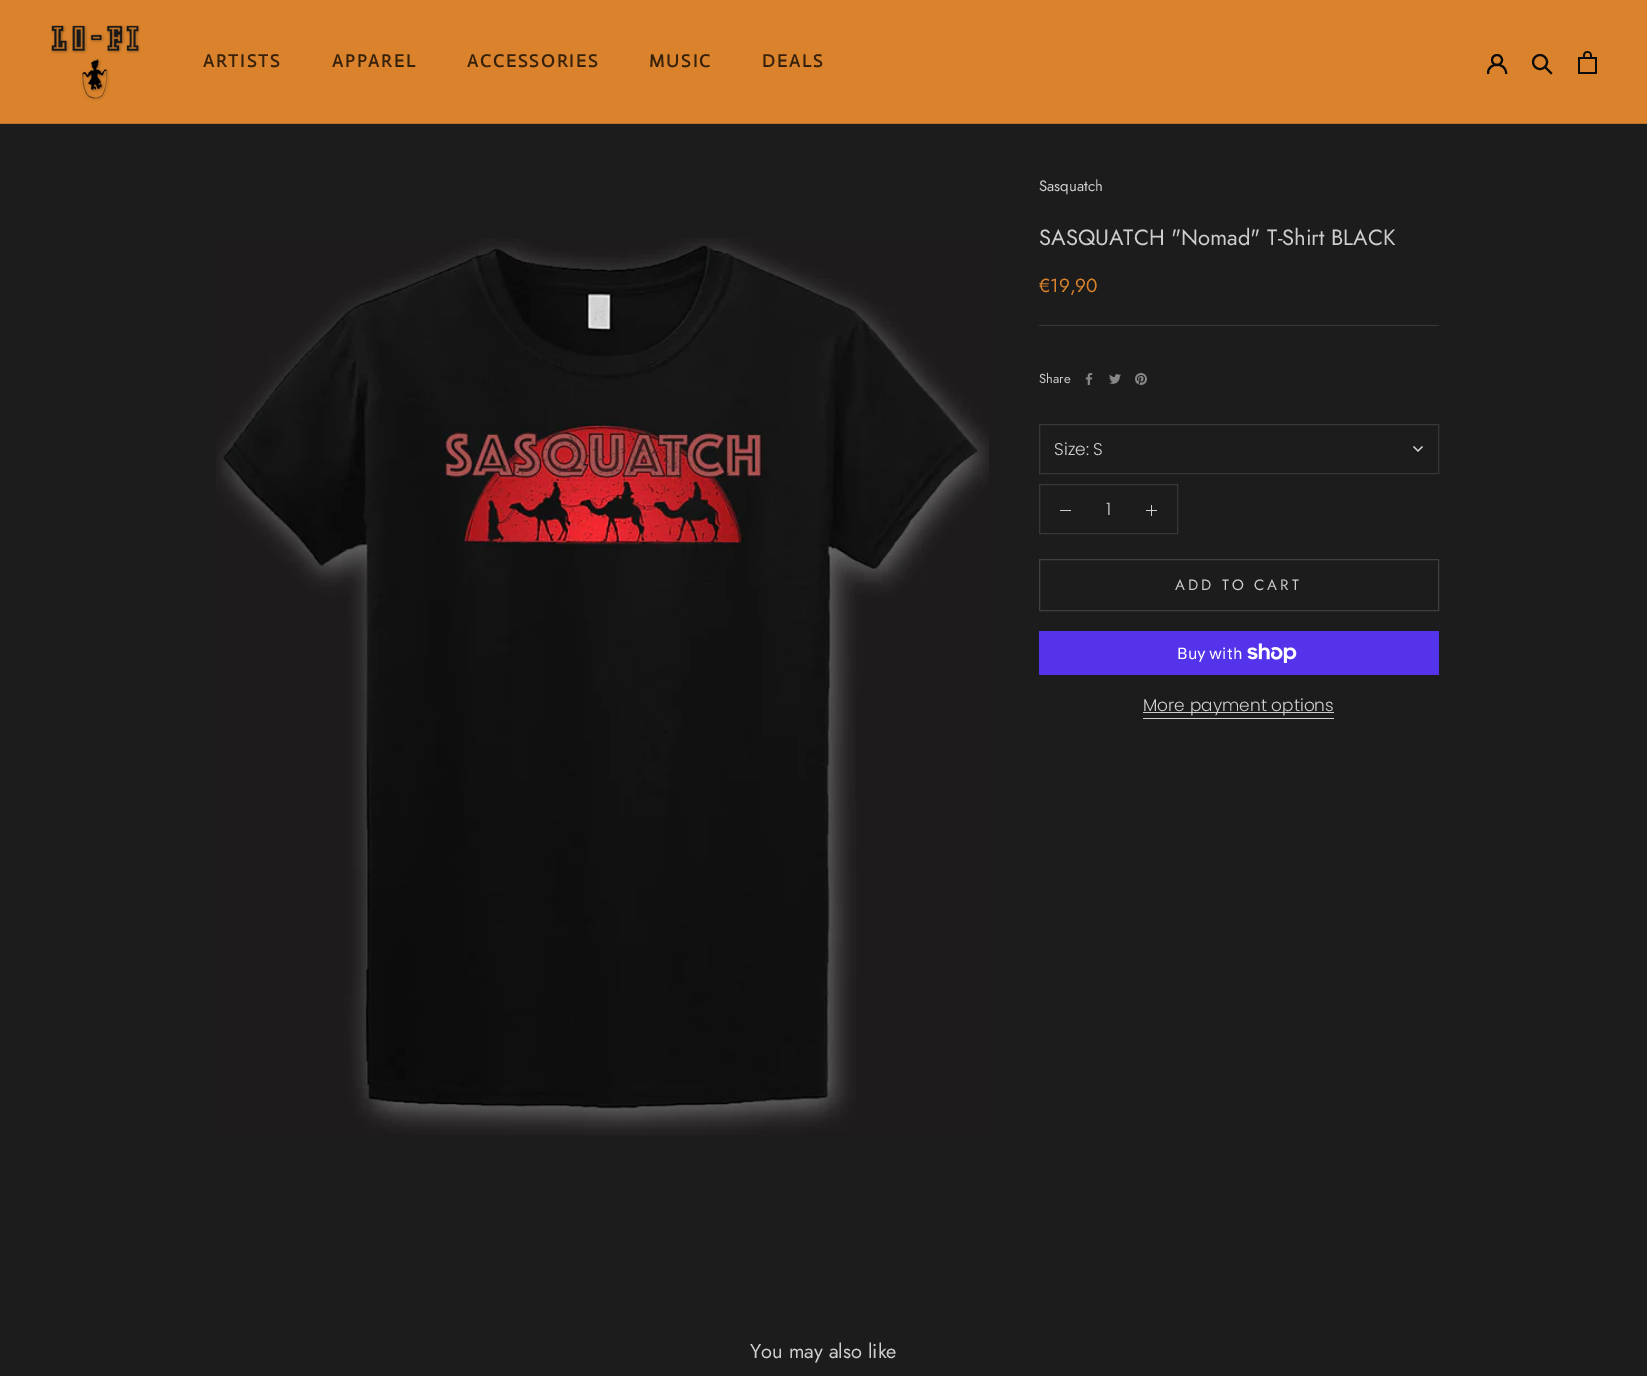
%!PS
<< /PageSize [1647 1376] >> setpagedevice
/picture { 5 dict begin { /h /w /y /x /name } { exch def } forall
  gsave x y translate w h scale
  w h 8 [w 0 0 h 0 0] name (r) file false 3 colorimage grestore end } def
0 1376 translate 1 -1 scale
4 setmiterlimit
0.114 0.11 0.11 setrgbcolor
0 0 1647 1376 rectfill
0.855 0.514 0.173 setrgbcolor
0 0 1647 123 rectfill
0.733 0.443 0.153 setrgbcolor
0 123 1647 1 rectfill
(img1.rgb) 51 25 89 76 picture
/Actor-Bold [18 0 0 -18 0 0] selectfont
0.216 0.129 0.043 setrgbcolor
203 67 moveto 2 0 (ARTISTS) ashow
332 67 moveto 2 0 (APPAREL) ashow
467 67 moveto 2 0 (ACCESSORIES) ashow
649 67 moveto 2 0 (MUSIC) ashow
762 67 moveto 2 0 (DEALS) ashow
0.047 setgray
2 setlinewidth
2 setlinecap
newpath 1488 73 moveto 1488 62 1506 62 1506 73 curveto stroke
0 setlinecap
newpath 1497 60 5 0 360 arc closepath stroke
2 setlinecap
newpath 1551 73 moveto 1545.5 67.5 lineto stroke
0 setlinecap
newpath 1540 62 7 0 360 arc closepath stroke
(img2.rgb) 1578 51 19 23 picture
(img3.rgb) 216 238 773 898 picture
/Jost-Regular [15 0 0 -15 0 0] selectfont
0.808 setgray
1039 191 moveto (Sasquatch) show
/Jost-Regular [22 0 0 -22 0 0] selectfont
1039 245 moveto (SASQUATCH "Nomad" T-Shirt BLACK) show
/Jost-Regular [19 0 0 -19 0 0] selectfont
0.855 0.514 0.173 setrgbcolor
1039 292 moveto (€19,90) show
0.22 0.216 0.216 setrgbcolor
1039 325 400 1 rectfill
/Jost-Regular [13 0 0 -13 0 0] selectfont
0.808 setgray
1039 383 moveto (Share) show
(img4.rgb) 1085 373 8 12 picture
(img5.rgb) 1109 374 12 10 picture
(img6.rgb) 1135 373 12 12 picture
0.22 0.216 0.216 setrgbcolor
1 setlinewidth
1039.5 424.5 399 49 rectstroke
/Poppins-Light [17 0 0 -17 0 0] selectfont
0.808 setgray
1054 455 moveto (Size: S) show
1.1 setlinewidth
2 setlinecap
newpath 1422 447 moveto 1418 451 lineto 1414 447 lineto stroke
0.22 0.216 0.216 setrgbcolor
1 setlinewidth
0 setlinecap
1039.5 484.5 138 49 rectstroke
0.808 setgray
1060 510 11 1 rectfill
1106 515 moveto (1) show
1151 505 1 11 rectfill
1146 510 11 1 rectfill
0.251 setgray
1039.5 559.5 399 51 rectstroke
/Jost-Regular [15 0 0 -15 0 0] selectfont
0.808 setgray
1175 590 moveto 3 0 (ADD TO CART) ashow
0.329 0.2 0.922 setrgbcolor
1039 631 400 44 rectfill
/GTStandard-Regular [16 0 0 -16 0 0] selectfont
1 setgray
1177 659 moveto (Buy with) show
(img7.rgb) 1247 643 50 20 picture
0.808 setgray
1143 712 191 1 rectfill
/Poppins-Light [17 0 0 -17 0 0] selectfont
1143 711 moveto (More payment options) show
1143 718 191 1 rectfill
/Jost-Regular [20 0 0 -20 0 0] selectfont
750 1358 moveto (You may also like) show
showpage
